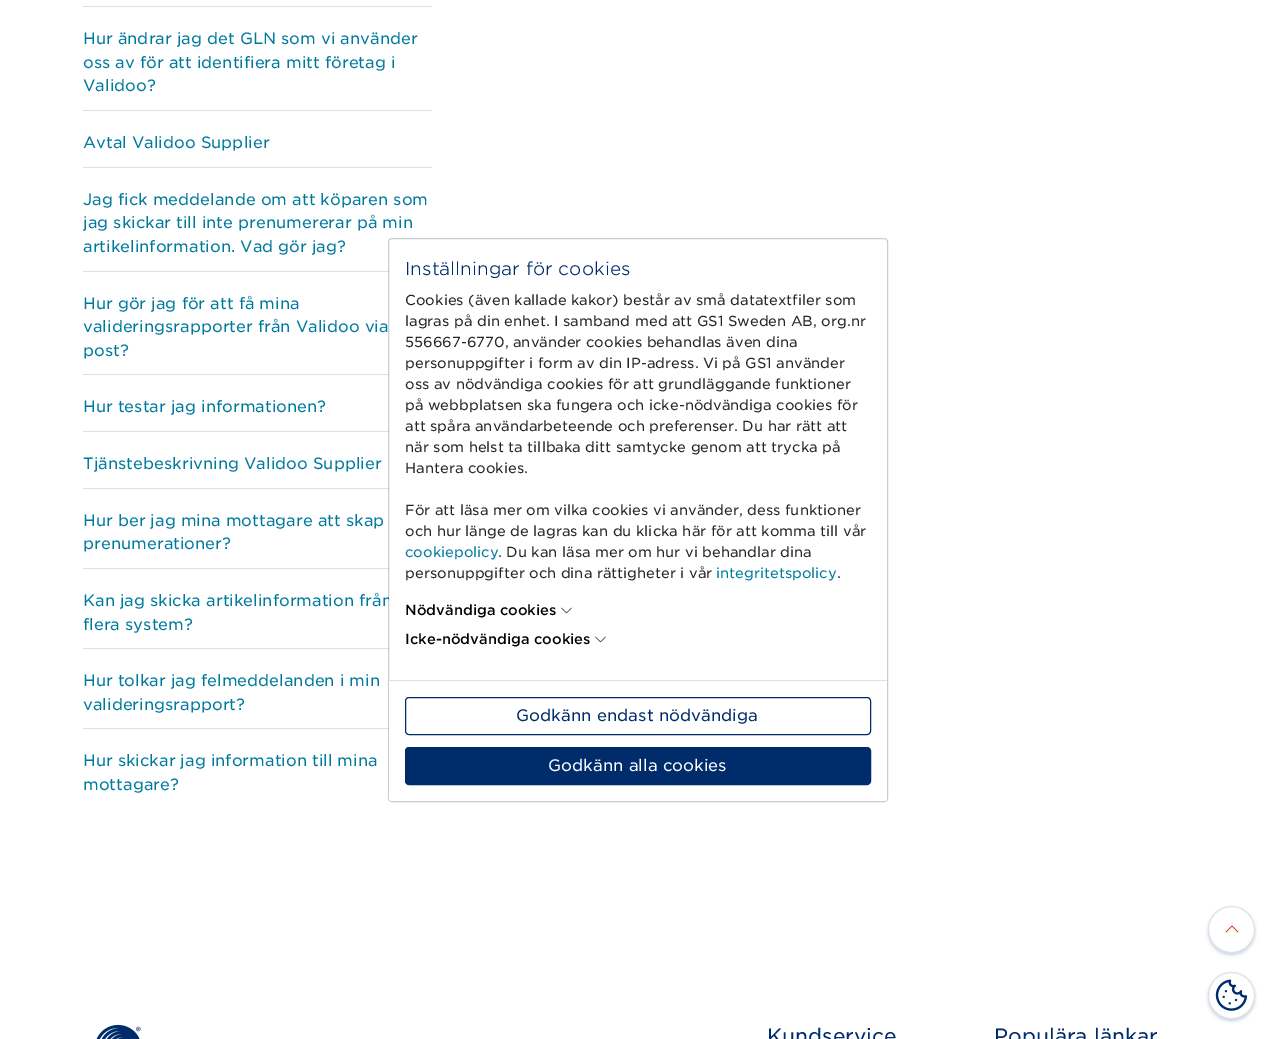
%!PS
<< /PageSize [1275 1039] /PageUsesTransparency true >> setpagedevice
/alpha { dup .setfillconstantalpha .setstrokeconstantalpha } def
/roundrect { 5 dict begin { /r /h /w /y /x } { exch def } forall
  x r add y moveto x w add y 2 copy h add r arct x w add y h add x 1 index r arct
  x y h add x y r arct x y 2 copy exch w add exch r arct closepath end } def
/shadow { 12 dict begin { /a /b /q /h /w /y /x } { exch def } forall gsave /was 0 def
  9 -2 -9 { dup b mul 4 div /e exch def 1 sub .425 mul 2.718 exch exp 1 add a .99 .min exch div /now exch def
    1 1 now sub 1 was sub div sub alpha /was now def
    w h .min e 2 mul add 0 gt { x e sub y e sub w e 2 mul add h e 2 mul add
      q e add b .6 mul add w h .min 2 div e add .min 0 .max roundrect fill } if } for grestore end } def
/picture { 5 dict begin { /h /w /y /x /name } { exch def } forall
  gsave x y translate w h scale
  w h 8 [w 0 0 h 0 0] name (r) file false 3 colorimage grestore end } def
0 .pushpdf14devicefilter
0 1039 translate 1 -1 scale
4 setmiterlimit
1 setgray
0 0 1275 1039 rectfill
0.875 setgray
83 6 349 1 rectfill
83 110 349 1 rectfill
/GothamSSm-Regular [15.75 0 0 -15.75 0 0] selectfont
0 0.475 0.62 setrgbcolor
83 44 moveto (Hur ändrar jag det GLN som vi använder) show
83 68 moveto (oss av för att identifiera mitt företag i) show
83 91 moveto (Validoo?) show
0.875 setgray
83 167 349 1 rectfill
0 0.475 0.62 setrgbcolor
83 148 moveto (Avtal Validoo Supplier) show
0.875 setgray
83 271 306 1 rectfill
0 0.475 0.62 setrgbcolor
83 205 moveto (Jag fick meddelande om att köparen som) show
83 228 moveto (jag skickar till inte prenumererar på min) show
83 252 moveto (artikelinformation. Vad gör jag?) show
0.875 setgray
83 374 306 1 rectfill
0 0.475 0.62 setrgbcolor
83 309 moveto (Hur gör jag för att få mina) show
83 332 moveto (valideringsrapporter från Validoo via) show
83 356 moveto (post?) show
0.875 setgray
83 431 306 1 rectfill
0 0.475 0.62 setrgbcolor
83 412 moveto (Hur testar jag informationen?) show
0.875 setgray
83 488 306 1 rectfill
0 0.475 0.62 setrgbcolor
83 469 moveto (Tjänstebeskrivning Validoo Supplier) show
0.875 setgray
83 568 306 1 rectfill
0 0.475 0.62 setrgbcolor
83 526 moveto (Hur ber jag mina mottagare att skap) show
83 549 moveto (prenumerationer?) show
0.875 setgray
83 648 306 1 rectfill
0 0.475 0.62 setrgbcolor
83 606 moveto (Kan jag skicka artikelinformation från) show
83 630 moveto (flera system?) show
0.875 setgray
83 728 306 1 rectfill
0 0.475 0.62 setrgbcolor
83 686 moveto (Hur tolkar jag felmeddelanden i min) show
83 710 moveto (valideringsrapport?) show
83 766 moveto (Hur skickar jag information till mina) show
83 790 moveto (mottagare?) show
1 setgray
389 239 498 562 3 roundrect fill
0.2 alpha
0 setgray
388.5 238.5 499 563 3.5 roundrect stroke
/GothamSSm-Light [18 0 0 -18 0 0] selectfont
1 alpha
0 0.173 0.424 setrgbcolor
405 275 moveto (Inställningar för cookies) show
/GothamSSm-Regular [14 0 0 -14 0 0] selectfont
0.149 setgray
405 305 moveto (Cookies \(även kallade kakor\) består av små datatextfiler som) show
405 326 moveto (lagras på din enhet. I samband med att GS1 Sweden AB, org.nr) show
405 347 moveto (556667-6770, använder cookies behandlas även dina) show
405 368 moveto (personuppgifter i form av din IP-adress. Vi på GS1 använder) show
405 389 moveto (oss av nödvändiga cookies för att grundläggande funktioner) show
405 410 moveto (på webbplatsen ska fungera och icke-nödvändiga cookies för) show
405 431 moveto (att spåra användarbeteende och preferenser. Du har rätt att) show
405 452 moveto (när som helst ta tillbaka ditt samtycke genom att trycka på) show
405 473 moveto (Hantera cookies.) show
405 515 moveto (För att läsa mer om vilka cookies vi använder, dess funktioner) show
405 536 moveto (och hur länge de lagras kan du klicka här för att komma till vår) show
0 0.475 0.62 setrgbcolor
405 557 moveto (cookiepolicy) show
0.149 setgray
498 557 moveto (. Du kan läsa mer om hur vi behandlar dina) show
405 578 moveto (personuppgifter och dina rättigheter i vår) show
0 0.475 0.62 setrgbcolor
716 578 moveto (integritetspolicy) show
0.149 setgray
837 578 moveto (.) show
/GothamSSm-Medium [14 0 0 -14 0 0] selectfont
0 setgray
405 615 moveto (Nödvändiga cookies) show
(img1.rgb) 561 607 11 7 picture
405 644 moveto (Icke-nödvändiga cookies) show
(img1.rgb) 595 636 11 7 picture
1 setgray
newpath 389 680 moveto 887 680 lineto 887 798 lineto 887 799.5 885.5 801 884 801 curveto 392 801 lineto 390.5 801 389 799.5 389 798 curveto closepath fill
0.871 0.886 0.902 setrgbcolor
389 680 498 1 rectfill
0 0.173 0.424 setrgbcolor
405.5 697.5 465 37 3.5 roundrect stroke
/GothamSSm-Regular [16 0 0 -16 0 0] selectfont
516 721 moveto (Godkänn endast nödvändiga) show
405.5 747.5 465 37 3.5 roundrect gsave fill grestore
stroke
1 setgray
548 771 moveto (Godkänn alla cookies) show
0 0.173 0.424 setrgbcolor
1208 908 47 47 23.5 1.5 0.2 shadow
1 setgray
newpath 1231.5 929.5 23 0 360 arc closepath gsave fill grestore
0.871 0.886 0.902 setrgbcolor
stroke
(img2.rgb) 1225 925 14 8 picture
0 0.173 0.424 setrgbcolor
1208 974 47 47 23.5 1.5 0.2 shadow
1 setgray
newpath 1231.5 995.5 23 0 360 arc closepath gsave fill grestore
0.871 0.886 0.902 setrgbcolor
stroke
(img3.rgb) 1215 979 33 32 picture
(img4.rgb) 96 1024 45 15 picture
/GothamSSm-Regular [20 0 0 -20 0 0] selectfont
0 0.173 0.424 setrgbcolor
767 1043 moveto (Kundservice) show
994 1043 moveto (Populära länkar) show
.poppdf14devicefilter showpage
